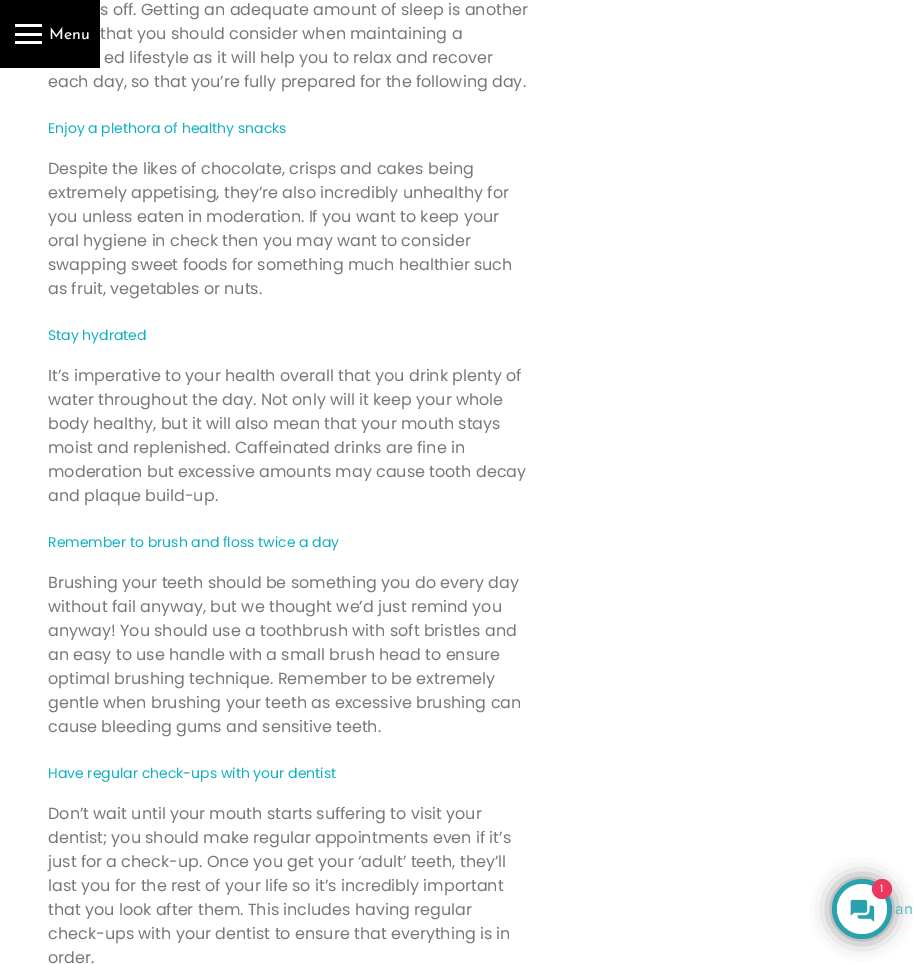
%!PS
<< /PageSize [917 964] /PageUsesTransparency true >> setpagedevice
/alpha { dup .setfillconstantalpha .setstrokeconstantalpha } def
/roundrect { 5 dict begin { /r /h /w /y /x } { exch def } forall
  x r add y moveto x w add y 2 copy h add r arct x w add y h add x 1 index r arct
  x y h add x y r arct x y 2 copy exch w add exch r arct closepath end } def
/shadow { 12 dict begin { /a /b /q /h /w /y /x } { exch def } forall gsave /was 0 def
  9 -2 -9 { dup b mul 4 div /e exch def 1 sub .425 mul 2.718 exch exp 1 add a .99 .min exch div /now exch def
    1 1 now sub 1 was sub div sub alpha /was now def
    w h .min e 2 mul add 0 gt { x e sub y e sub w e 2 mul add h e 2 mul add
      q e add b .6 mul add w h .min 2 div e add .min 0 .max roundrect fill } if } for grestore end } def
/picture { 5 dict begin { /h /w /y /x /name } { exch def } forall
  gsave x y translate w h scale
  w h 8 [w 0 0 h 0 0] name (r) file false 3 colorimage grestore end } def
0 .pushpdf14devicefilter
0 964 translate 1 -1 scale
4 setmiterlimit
1 setgray
0 0 917 964 rectfill
/Poppins-Regular [16 0 0 -16 0 0] selectfont
0.475 setgray
100 15 moveto (s off. Getting an adequate amount of sleep is another) show
100 39 moveto (that you should consider when maintaining a) show
104 63 moveto (ed lifestyle as it will help you to relax and recover) show
48 87 moveto (each day, so that you’re fully prepared for the following day.) show
/Poppins-Regular [14 0 0 -14 0 0] selectfont
0.075 0.694 0.749 setrgbcolor
48 133 moveto (Enjoy a plethora of healthy snacks) show
/Poppins-Regular [16 0 0 -16 0 0] selectfont
0.475 setgray
48 174 moveto (Despite the likes of chocolate, crisps and cakes being) show
48 198 moveto (extremely appetising, they’re also incredibly unhealthy for) show
48 222 moveto (you unless eaten in moderation. If you want to keep your) show
48 246 moveto (oral hygiene in check then you may want to consider) show
48 270 moveto (swapping sweet foods for something much healthier such) show
48 294 moveto (as fruit, vegetables or nuts.) show
/Poppins-Regular [14 0 0 -14 0 0] selectfont
0.075 0.694 0.749 setrgbcolor
48 340 moveto (Stay hydrated) show
/Poppins-Regular [16 0 0 -16 0 0] selectfont
0.475 setgray
48 381 moveto (It’s imperative to your health overall that you drink plenty of) show
48 405 moveto (water throughout the day. Not only will it keep your whole) show
48 429 moveto (body healthy, but it will also mean that your mouth stays) show
48 453 moveto (moist and replenished. Caffeinated drinks are fine in) show
48 477 moveto (moderation but excessive amounts may cause tooth decay) show
48 501 moveto (and plaque build-up.) show
/Poppins-Regular [14 0 0 -14 0 0] selectfont
0.075 0.694 0.749 setrgbcolor
48 547 moveto (Remember to brush and floss twice a day) show
/Poppins-Regular [16 0 0 -16 0 0] selectfont
0.475 setgray
48 588 moveto (Brushing your teeth should be something you do every day) show
48 612 moveto (without fail anyway, but we thought we’d just remind you) show
48 636 moveto (anyway! You should use a toothbrush with soft bristles and) show
48 660 moveto (an easy to use handle with a small brush head to ensure) show
48 684 moveto (optimal brushing technique. Remember to be extremely) show
48 708 moveto (gentle when brushing your teeth as excessive brushing can) show
48 732 moveto (cause bleeding gums and sensitive teeth.) show
/Poppins-Regular [14 0 0 -14 0 0] selectfont
0.075 0.694 0.749 setrgbcolor
48 778 moveto (Have regular check-ups with your dentist) show
/Poppins-Regular [16 0 0 -16 0 0] selectfont
0.475 setgray
48 819 moveto (Don’t wait until your mouth starts suffering to visit your) show
48 843 moveto (dentist; you should make regular appointments even if it’s) show
48 867 moveto (just for a check-up. Once you get your ‘adult’ teeth, they’ll) show
48 891 moveto (last you for the rest of your life so it’s incredibly important) show
48 915 moveto (that you look after them. This includes having regular) show
48 939 moveto (check-ups with your dentist to ensure that everything is in) show
48 963 moveto (order.) show
0 setgray
0 0 100 68 rectfill
1 setgray
15 24 27 3 rectfill
15 33 27 3 rectfill
15 41 27 3 rectfill
/JosefinSans-Regular [16 0 0 -16 0 0] selectfont
49 39 moveto (Menu) show
0 setgray
832 879 60 60 30 10 0.5 shadow
0.161 0.635 0.678 setrgbcolor
newpath 862 909 30 0 360 arc closepath fill
1 setgray
newpath 862 909 25 0 360 arc closepath fill
(img1.rgb) 850 899 25 23 picture
0.922 0.22 0.369 setrgbcolor
newpath 882 889 10 0 360 arc closepath fill
/Poppins-Regular [10 0 0 -10 0 0] selectfont
1 setgray
880 892 moveto (1) show
/ProximaNova-Medium [16 0 0 -16 0 0] selectfont
0.384 0.722 0.753 setrgbcolor
895 914 moveto (an) show
.poppdf14devicefilter showpage
